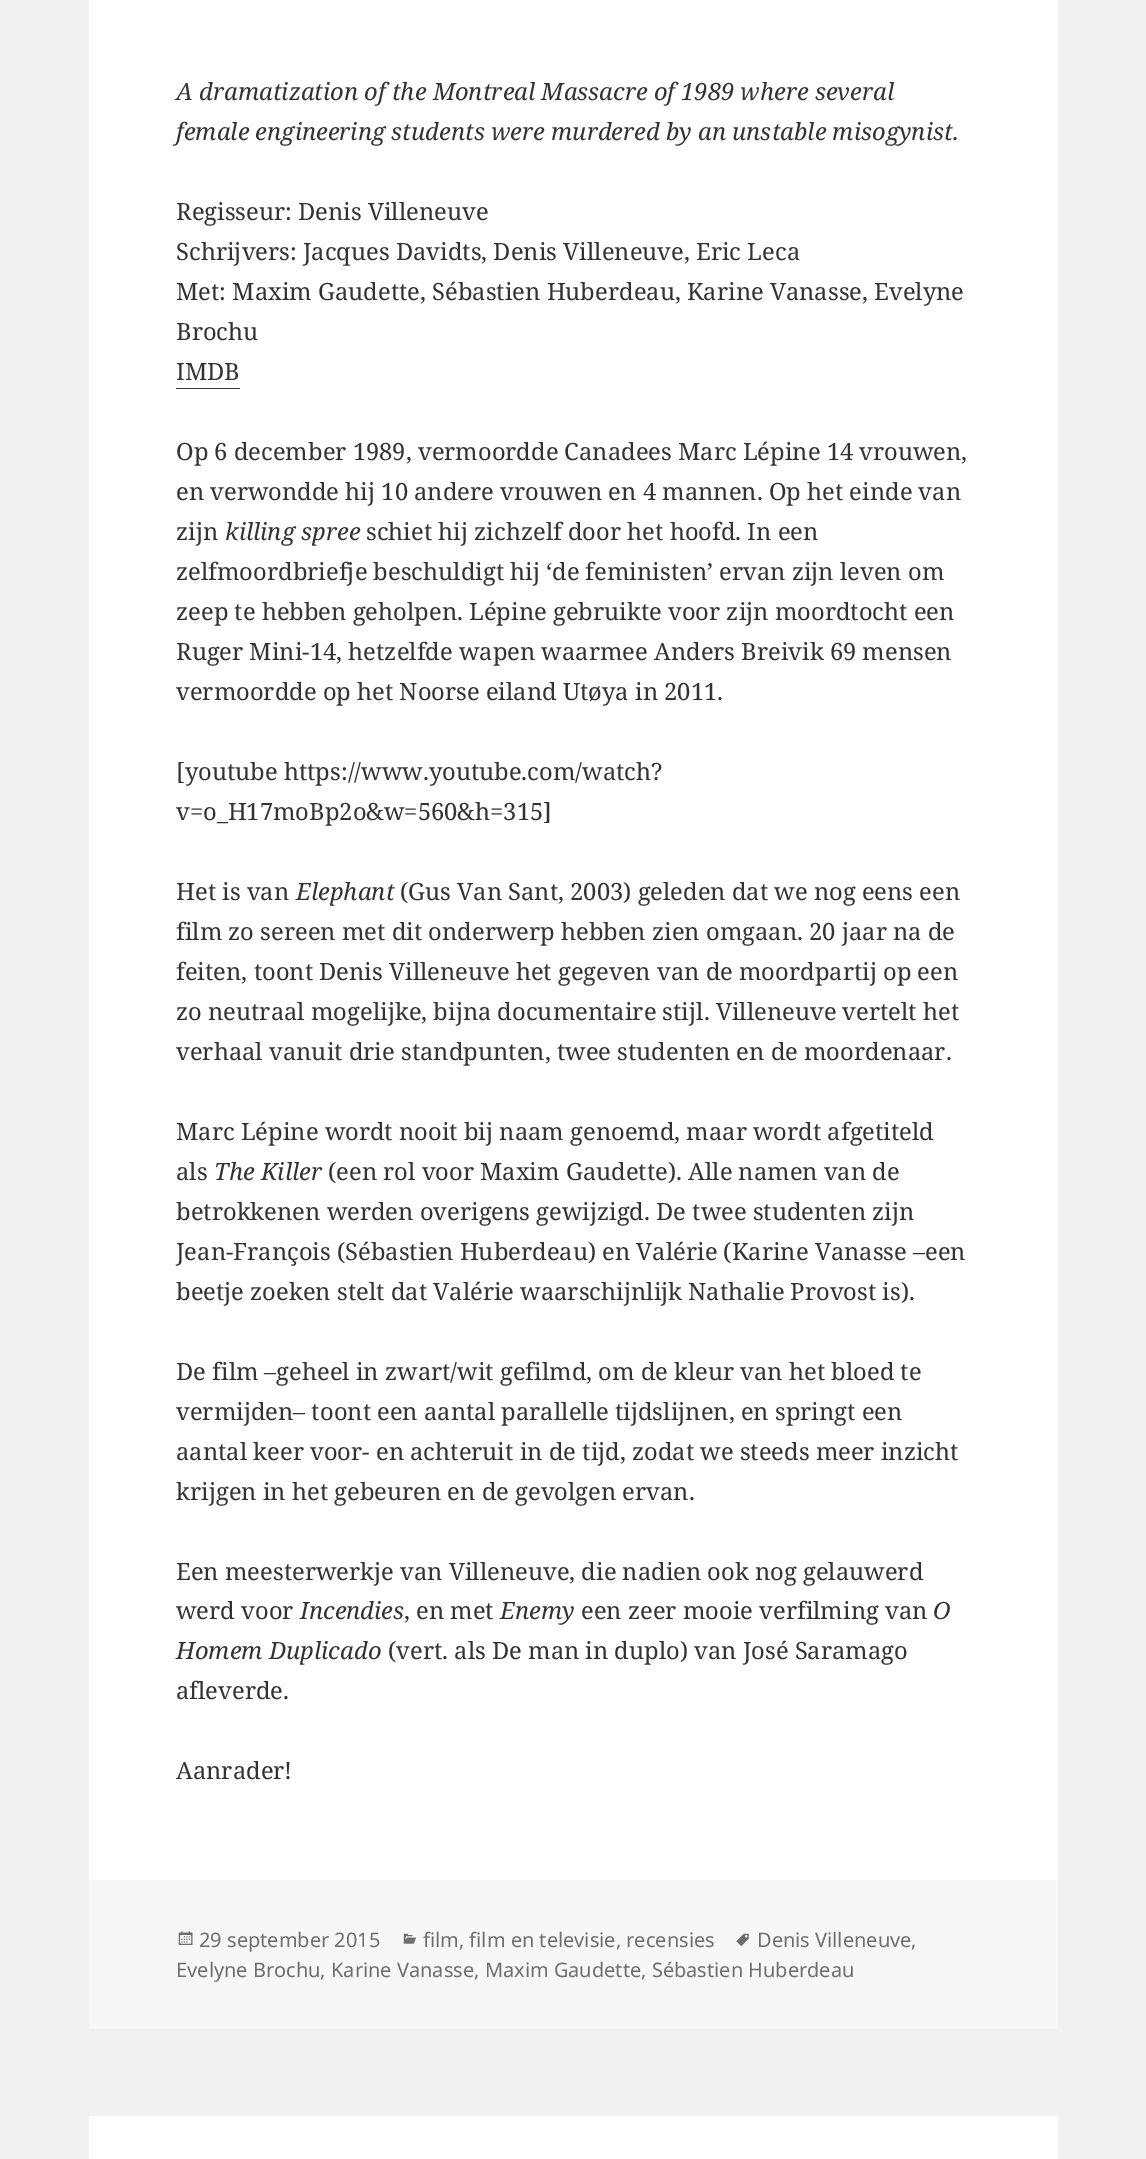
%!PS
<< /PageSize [1146 2159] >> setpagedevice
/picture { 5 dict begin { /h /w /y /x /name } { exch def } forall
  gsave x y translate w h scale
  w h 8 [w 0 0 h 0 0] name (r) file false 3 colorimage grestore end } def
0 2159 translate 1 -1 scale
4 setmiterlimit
0.945 setgray
0 0 1146 2159 rectfill
1 setgray
89 0 969 1880 rectfill
/NotoSerif-Italic [23.75 0 0 -23.75 0 0] selectfont
0.2 setgray
176 100 moveto (A dramatization of the Montreal Massacre of 1989 where several) show
176 140 moveto (female engineering students were murdered by an unstable misogynist.) show
/NotoSerif-Regular [23.75 0 0 -23.75 0 0] selectfont
176 220 moveto (Regisseur: Denis Villeneuve) show
176 260 moveto (Schrijvers: Jacques Davidts, Denis Villeneuve, Eric Leca) show
176 300 moveto (Met: Maxim Gaudette, Sébastien Huberdeau, Karine Vanasse, Evelyne) show
176 340 moveto (Brochu) show
176 380 moveto (IMDB) show
176 388 64 1 rectfill
176 460 moveto (Op 6 december 1989, vermoordde Canadees Marc Lépine 14 vrouwen,) show
176 500 moveto (en verwondde hij 10 andere vrouwen en 4 mannen. Op het einde van) show
176 540 moveto (zijn) show
/NotoSerif-Italic [23.75 0 0 -23.75 0 0] selectfont
225 540 moveto (killing spree) show
/NotoSerif-Regular [23.75 0 0 -23.75 0 0] selectfont
366 540 moveto (schiet hij zichzelf door het hoofd. In een) show
176 580 moveto (zelfmoordbriefje beschuldigt hij ‘de feministen’ ervan zijn leven om) show
176 620 moveto (zeep te hebben geholpen. Lépine gebruikte voor zijn moordtocht een) show
176 660 moveto (Ruger Mini-14, hetzelfde wapen waarmee Anders Breivik 69 mensen) show
176 700 moveto (vermoordde op het Noorse eiland Utøya in 2011.) show
176 780 moveto ([youtube https://www.youtube.com/watch?) show
176 820 moveto (v=o_H17moBp2o&w=560&h=315]) show
176 900 moveto (Het is van) show
/NotoSerif-Italic [23.75 0 0 -23.75 0 0] selectfont
296 900 moveto (Elephant) show
/NotoSerif-Regular [23.75 0 0 -23.75 0 0] selectfont
400 900 moveto (\(Gus Van Sant, 2003\) geleden dat we nog eens een) show
176 940 moveto (film zo sereen met dit onderwerp hebben zien omgaan. 20 jaar na de) show
176 980 moveto (feiten, toont Denis Villeneuve het gegeven van de moordpartij op een) show
176 1020 moveto (zo neutraal mogelijke, bijna documentaire stijl. Villeneuve vertelt het) show
176 1060 moveto (verhaal vanuit drie standpunten, twee studenten en de moordenaar.) show
176 1140 moveto (Marc Lépine wordt nooit bij naam genoemd, maar wordt afgetiteld) show
176 1180 moveto (als) show
/NotoSerif-Italic [23.75 0 0 -23.75 0 0] selectfont
214 1180 moveto (The Killer) show
/NotoSerif-Regular [23.75 0 0 -23.75 0 0] selectfont
328 1180 moveto (\(een rol voor Maxim Gaudette\). Alle namen van de) show
176 1220 moveto (betrokkenen werden overigens gewijzigd. De twee studenten zijn) show
176 1260 moveto (Jean-François \(Sébastien Huberdeau\) en Valérie \(Karine Vanasse –een) show
176 1300 moveto (beetje zoeken stelt dat Valérie waarschijnlijk Nathalie Provost is\).) show
176 1380 moveto (De film –geheel in zwart/wit gefilmd, om de kleur van het bloed te) show
176 1420 moveto (vermijden– toont een aantal parallelle tijdslijnen, en springt een) show
176 1460 moveto (aantal keer voor- en achteruit in de tijd, zodat we steeds meer inzicht) show
176 1500 moveto (krijgen in het gebeuren en de gevolgen ervan.) show
176 1580 moveto (Een meesterwerkje van Villeneuve, die nadien ook nog gelauwerd) show
176 1619 moveto (werd voor) show
/NotoSerif-Italic [23.75 0 0 -23.75 0 0] selectfont
300 1619 moveto (Incendies) show
/NotoSerif-Regular [23.75 0 0 -23.75 0 0] selectfont
404 1619 moveto (, en met) show
/NotoSerif-Italic [23.75 0 0 -23.75 0 0] selectfont
500 1619 moveto (Enemy) show
/NotoSerif-Regular [23.75 0 0 -23.75 0 0] selectfont
581 1619 moveto (een zeer mooie verfilming van) show
/NotoSerif-Italic [23.75 0 0 -23.75 0 0] selectfont
933 1619 moveto (O) show
176 1659 moveto (Homem Duplicado) show
/NotoSerif-Regular [23.75 0 0 -23.75 0 0] selectfont
388 1659 moveto (\(vert. als De man in duplo\) van José Saramago) show
176 1699 moveto (afleverde.) show
176 1779 moveto (Aanrader!) show
0.969 setgray
89 1880 969 149 rectfill
(img1.rgb) 736 1933 13 14 picture
/NotoSans-Regular [20 0 0 -20 0 0] selectfont
0.431 setgray
757 1947 moveto (Denis Villeneuve,) show
176 1977 moveto (Evelyne Brochu, Karine Vanasse, Maxim Gaudette, Sébastien Huberdeau) show
(img2.rgb) 178 1931 15 14 picture
199 1947 moveto (29 september 2015) show
(img3.rgb) 403 1933 14 11 picture
423 1947 moveto (film, film en televisie, recensies) show
1 setgray
89 2116 969 43 rectfill
showpage
